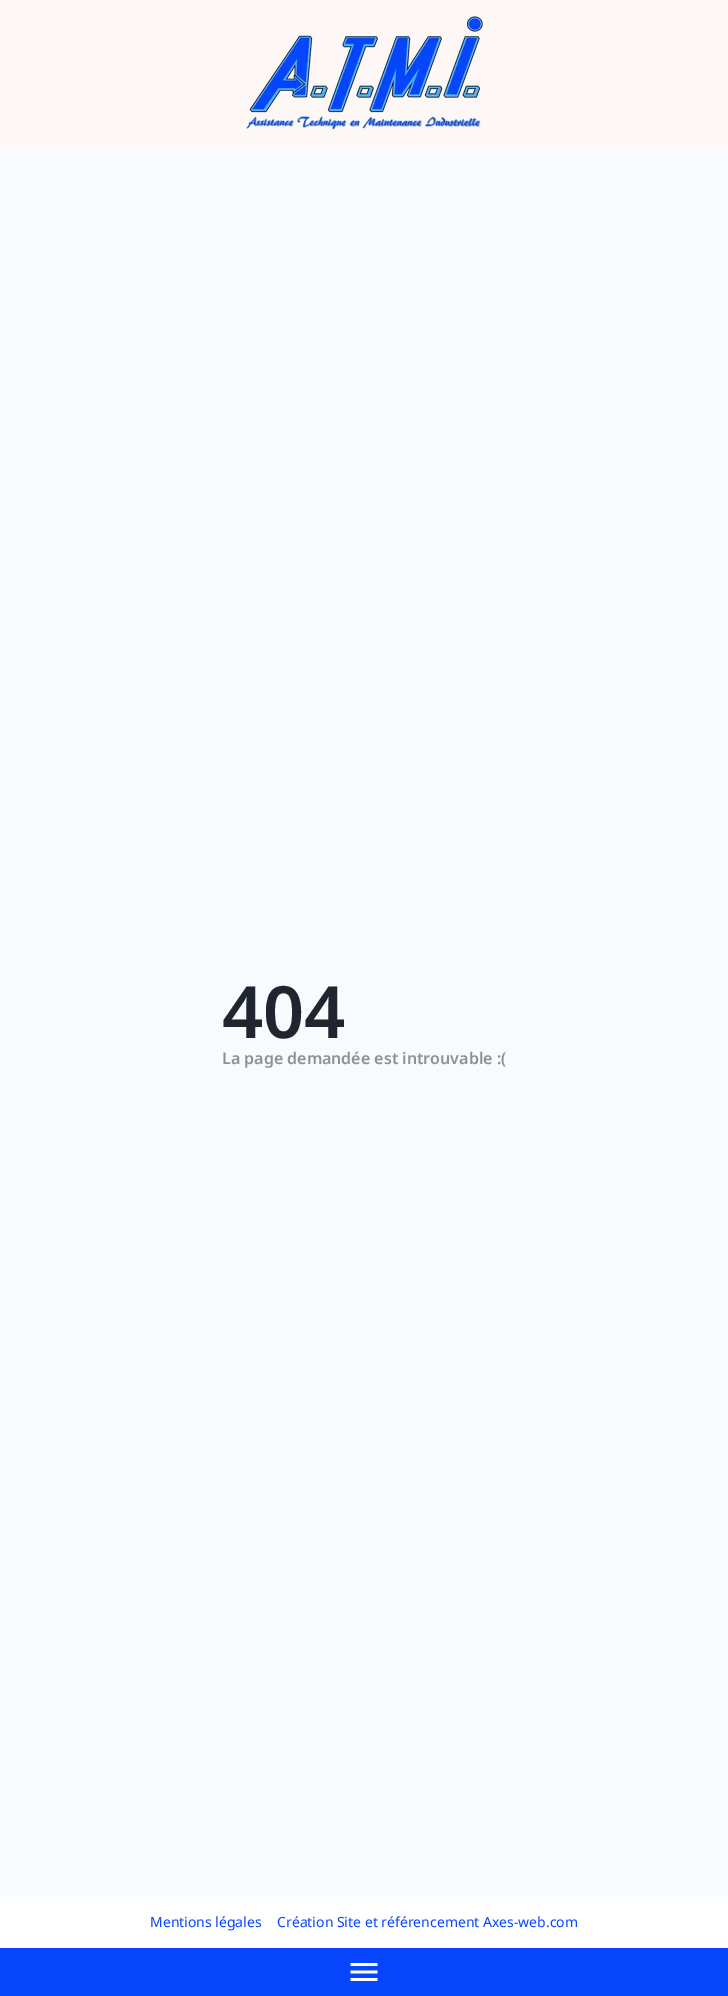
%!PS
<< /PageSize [728 1996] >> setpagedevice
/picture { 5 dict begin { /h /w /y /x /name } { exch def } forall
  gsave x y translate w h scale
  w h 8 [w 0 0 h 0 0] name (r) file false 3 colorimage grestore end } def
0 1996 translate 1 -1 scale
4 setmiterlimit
0.969 0.984 0.992 setrgbcolor
0 0 728 1996 rectfill
0.992 0.973 0.965 setrgbcolor
0 0 728 147 rectfill
(img1.rgb) 246 16 237 115 picture
/NotoSans-SemiBold [72 0 0 -72 0 0] selectfont
0.129 0.145 0.188 setrgbcolor
222 1038 moveto (404) show
/NotoSans-SemiBold [16 0 0 -16 0 0] selectfont
0.549 0.565 0.592 setrgbcolor
222 1064 moveto (La page demandée est introuvable :\() show
1 setgray
0 1896 728 52 rectfill
/NotoSans-Regular [14 0 0 -14 0 0] selectfont
0.027 0.275 0.992 setrgbcolor
150 1927 moveto (Mentions légales) show
277 1927 moveto (Création Site et référencement Axes-web.com) show
0 1948 728 48 rectfill
(img2.rgb) 350 1963 28 18 picture
showpage
